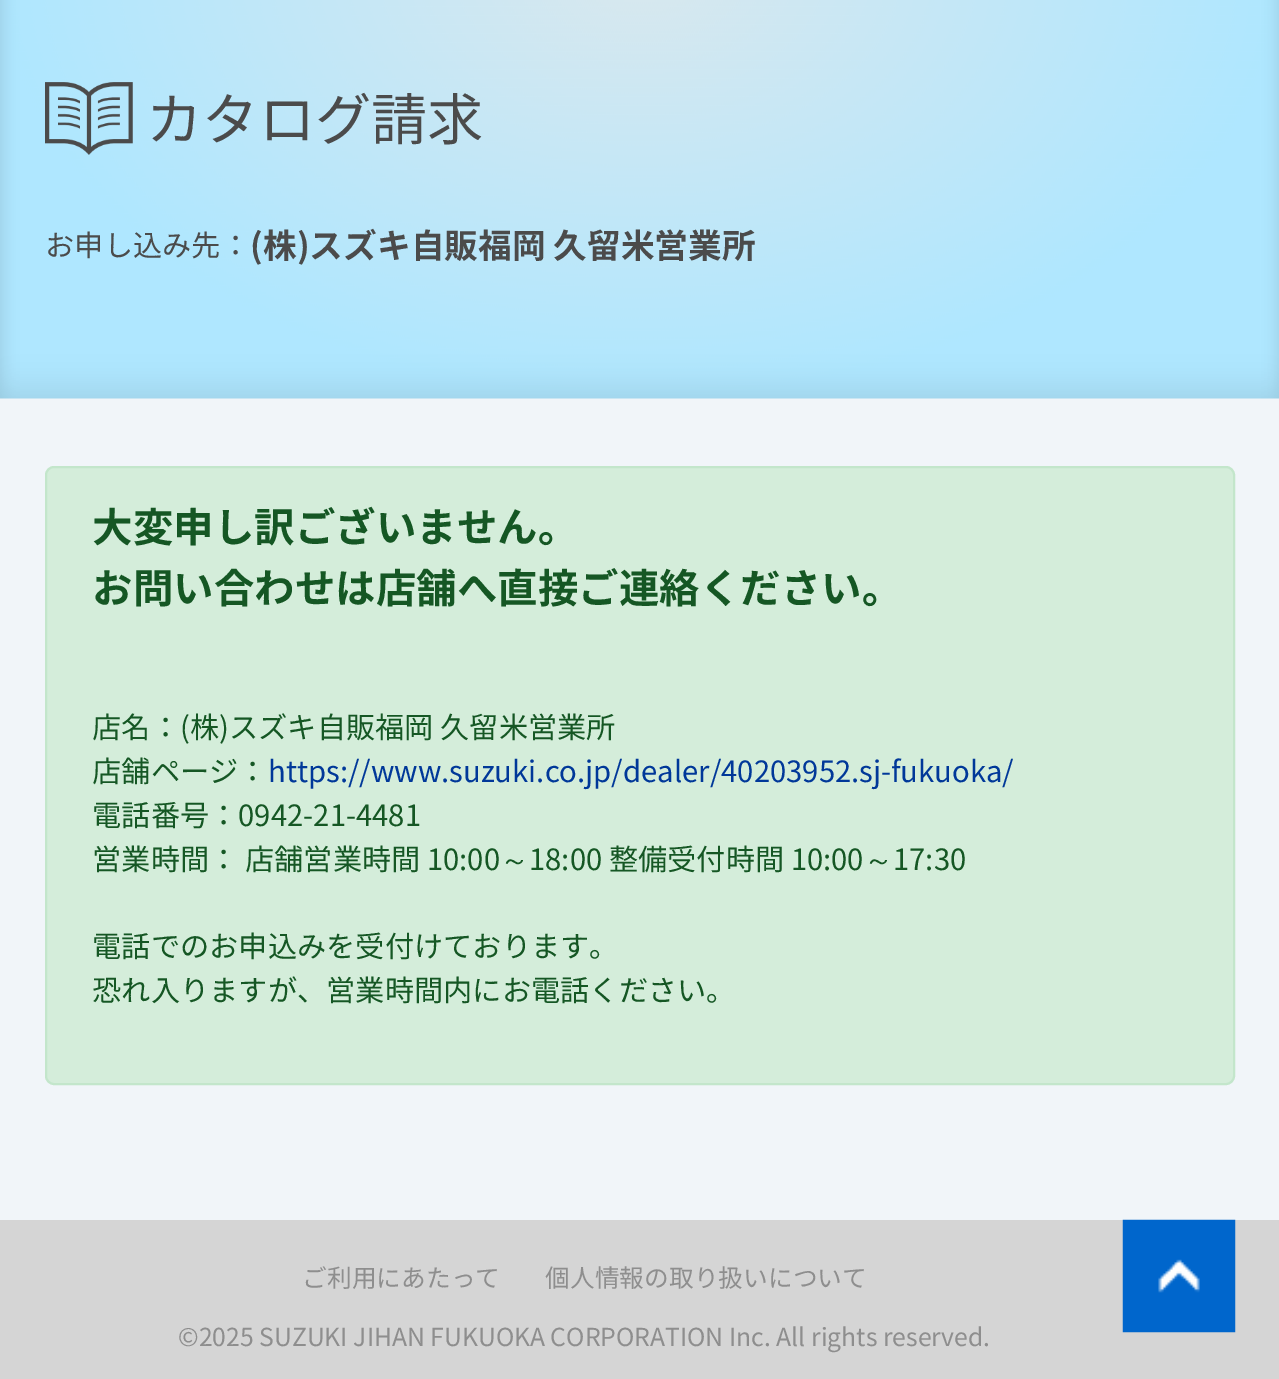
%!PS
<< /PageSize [1279 1379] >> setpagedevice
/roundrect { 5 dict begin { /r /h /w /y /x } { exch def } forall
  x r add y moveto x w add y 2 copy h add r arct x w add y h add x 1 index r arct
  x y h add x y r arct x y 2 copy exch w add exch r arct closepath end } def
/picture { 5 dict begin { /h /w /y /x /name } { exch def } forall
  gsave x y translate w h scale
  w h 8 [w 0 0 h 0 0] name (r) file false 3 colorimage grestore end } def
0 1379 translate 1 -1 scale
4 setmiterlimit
0.945 0.961 0.976 setrgbcolor
0 0 1279 1379 rectfill
(img1.rgb) 0 0 1279 399 picture
(img2.rgb) 45 82 88 73 picture
/NotoSansJP-Regular [56.25 0 0 -56.25 0 0] selectfont
0.294 setgray
146 140 moveto (カタログ請求) show
/NotoSansJP-Regular [29.25 0 0 -29.25 0 0] selectfont
45 256 moveto (お申し込み先：) show
/NotoSansJP-Bold [33.75 0 0 -33.75 0 0] selectfont
250 258 moveto (\(株\)スズキ自販福岡 久留米営業所) show
0.831 0.929 0.855 setrgbcolor
46 467 1188 617 8 roundrect gsave fill grestore
0.765 0.902 0.796 setrgbcolor
2 setlinewidth
stroke
/NotoSansJP-Bold [40.5 0 0 -40.5 0 0] selectfont
0.082 0.341 0.141 setrgbcolor
92 542 moveto (大変申し訳ございません。) show
92 603 moveto (お問い合わせは店舗へ直接ご連絡ください。) show
/NotoSansJP-Regular [29.25 0 0 -29.25 0 0] selectfont
92 738 moveto (店名：\(株\)スズキ自販福岡 久留米営業所) show
92 782 moveto (店舗ページ：) show
0 0.22 0.6 setrgbcolor
268 782 moveto (https://www.suzuki.co.jp/dealer/40203952.sj-fukuoka/) show
0.082 0.341 0.141 setrgbcolor
92 826 moveto (電話番号：0942-21-4481) show
92 870 moveto (営業時間： 店舗営業時間 10:00) show
/WenQuanYiZenHei-Medium [29.25 0 0 -29.25 0 0] selectfont
500 870 moveto (～) show
/NotoSansJP-Regular [29.25 0 0 -29.25 0 0] selectfont
529 870 moveto (18:00 整備受付時間 10:00) show
/WenQuanYiZenHei-Medium [29.25 0 0 -29.25 0 0] selectfont
864 870 moveto (～) show
/NotoSansJP-Regular [29.25 0 0 -29.25 0 0] selectfont
893 870 moveto (17:30) show
92 957 moveto (電話でのお申込みを受付けております。) show
92 1001 moveto (恐れ入りますが、営業時間内にお電話ください。) show
0.835 setgray
0 1220 1279 159 rectfill
/NotoSansJP-Regular [24.75 0 0 -24.75 0 0] selectfont
0.557 setgray
302 1287 moveto (ご利用にあたって) show
545 1287 moveto (個人情報の取り扱いについて) show
178 1346 moveto (©2025 SUZUKI JIHAN FUKUOKA CORPORATION Inc. All rights reserved.) show
(img3.rgb) 1122 1219 114 114 picture
showpage
